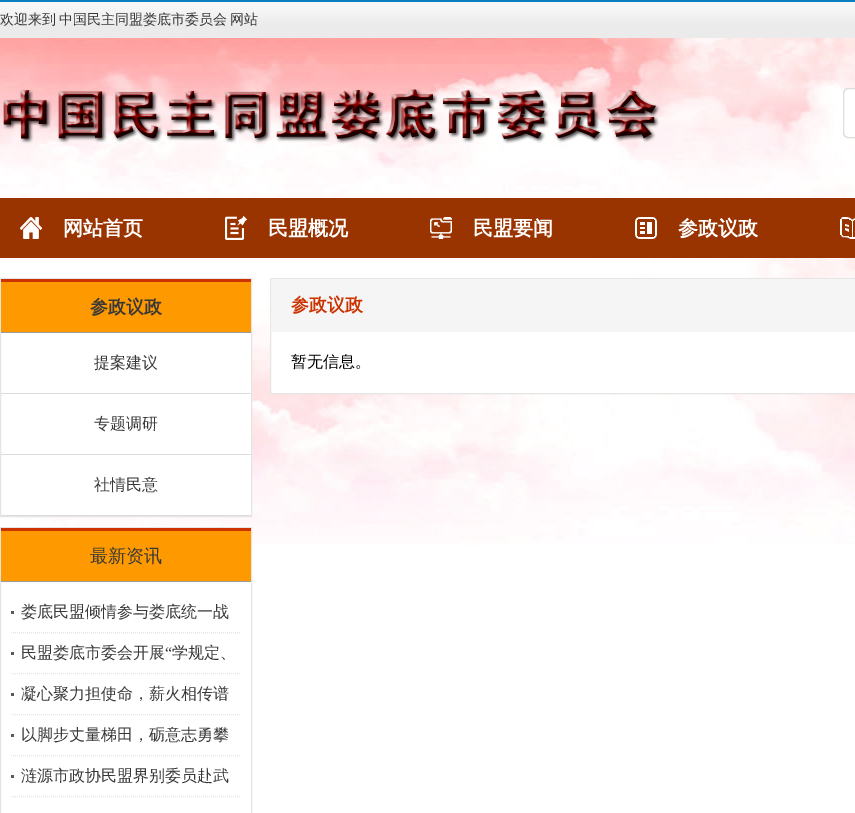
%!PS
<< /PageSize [855 813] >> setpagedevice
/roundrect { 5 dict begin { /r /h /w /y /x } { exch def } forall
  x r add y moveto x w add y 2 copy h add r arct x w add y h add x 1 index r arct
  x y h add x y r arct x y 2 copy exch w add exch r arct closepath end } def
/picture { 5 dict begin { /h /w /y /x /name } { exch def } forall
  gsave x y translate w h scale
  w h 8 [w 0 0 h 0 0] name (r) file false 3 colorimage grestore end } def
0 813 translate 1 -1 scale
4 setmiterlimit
1 setgray
0 0 855 813 rectfill
(img1.rgb) 0 38 855 507 picture
(img2.rgb) 0 2 855 36 picture
0.047 0.498 0.765 setrgbcolor
0 0 855 2 rectfill
/WenQuanYiZenHei-Medium [14 0 0 -14 0 0] selectfont
0.22 setgray
0 24 moveto -1 0 32 (欢迎来到 中国民主同盟娄底市委员会 网站) widthshow
(img3.rgb) 3 89 657 55 picture
(img4.rgb) 844 89 11 48 picture
0.871 setgray
843.5 88.5 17 49 4.5 roundrect stroke
0.6 0.2 0 setrgbcolor
0 198 855 60 rectfill
(img5.rgb) 20 217 22 22 picture
/WenQuanYiZenHei-Bold [20 0 0 -20 0 0] selectfont
1 setgray
63 235 moveto (网站首页) show
(img6.rgb) 225 216 22 24 picture
268 235 moveto (民盟概况) show
(img7.rgb) 430 217 22 22 picture
473 235 moveto (民盟要闻) show
(img8.rgb) 635 217 22 22 picture
678 235 moveto (参政议政) show
(img9.rgb) 840 217 15 22 picture
1 333 250 182 rectfill
0.898 setgray
0.5 278.5 251 238 rectstroke
1 0.6 0 setrgbcolor
1 282 250 50 rectfill
0.8 0.2 0 setrgbcolor
1 279 250 3 rectfill
0.604 0.612 0.604 setrgbcolor
1 332 250 1 rectfill
/WenQuanYiZenHei-Bold [18 0 0 -18 0 0] selectfont
0.22 setgray
90 313 moveto (参政议政) show
0.867 setgray
1 393 250 1 rectfill
/WenQuanYiZenHei-Medium [16 0 0 -16 0 0] selectfont
0.22 setgray
94 368 moveto (提案建议) show
0.867 setgray
1 454 250 1 rectfill
0.22 setgray
94 429 moveto (专题调研) show
0.867 setgray
1 515 250 1 rectfill
0.22 setgray
94 490 moveto (社情民意) show
0.898 setgray
0.5 527.5 251 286 rectstroke
1 0.6 0 setrgbcolor
1 531 250 50 rectfill
0.8 0.2 0 setrgbcolor
1 528 250 3 rectfill
0.604 0.612 0.604 setrgbcolor
1 581 250 1 rectfill
/WenQuanYiZenHei-Medium [18 0 0 -18 0 0] selectfont
0.22 setgray
90 562 moveto (最新资讯) show
0.898 setgray
[1 1] 0 setdash
newpath 11 632.5 moveto 241 632.5 lineto stroke
0.349 setgray
11 611 3 3 rectfill
/WenQuanYiZenHei-Medium [16 0 0 -16 0 0] selectfont
0.22 setgray
21 617 moveto (娄底民盟倾情参与娄底统一战) show
0.898 setgray
newpath 11 673.5 moveto 241 673.5 lineto stroke
0.349 setgray
11 652 3 3 rectfill
0.22 setgray
21 658 moveto (民盟娄底市委会开展) show
/LiberationSerif-Regular [16 0 0 -16 0 0] selectfont
165 658 moveto (“) show
/WenQuanYiZenHei-Medium [16 0 0 -16 0 0] selectfont
172 658 moveto (学规定、) show
0.898 setgray
newpath 11 714.5 moveto 241 714.5 lineto stroke
0.349 setgray
11 693 3 3 rectfill
0.22 setgray
21 699 moveto (凝心聚力担使命，薪火相传谱) show
0.898 setgray
newpath 11 755.5 moveto 241 755.5 lineto stroke
0.349 setgray
11 734 3 3 rectfill
0.22 setgray
21 740 moveto (以脚步丈量梯田，砺意志勇攀) show
0.898 setgray
newpath 11 796.5 moveto 241 796.5 lineto stroke
0.349 setgray
11 775 3 3 rectfill
0.22 setgray
21 781 moveto (涟源市政协民盟界别委员赴武) show
1 setgray
271 332 584 61 rectfill
0.898 setgray
[] 0 setdash
270.5 278.5 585 115 rectstroke
0.961 setgray
271 279 584 53 rectfill
/WenQuanYiZenHei-Bold [18 0 0 -18 0 0] selectfont
0.8 0.2 0 setrgbcolor
291 311 moveto (参政议政) show
/WenQuanYiZenHei-Medium [16 0 0 -16 0 0] selectfont
0 setgray
291 367 moveto (暂无信息。) show
showpage
